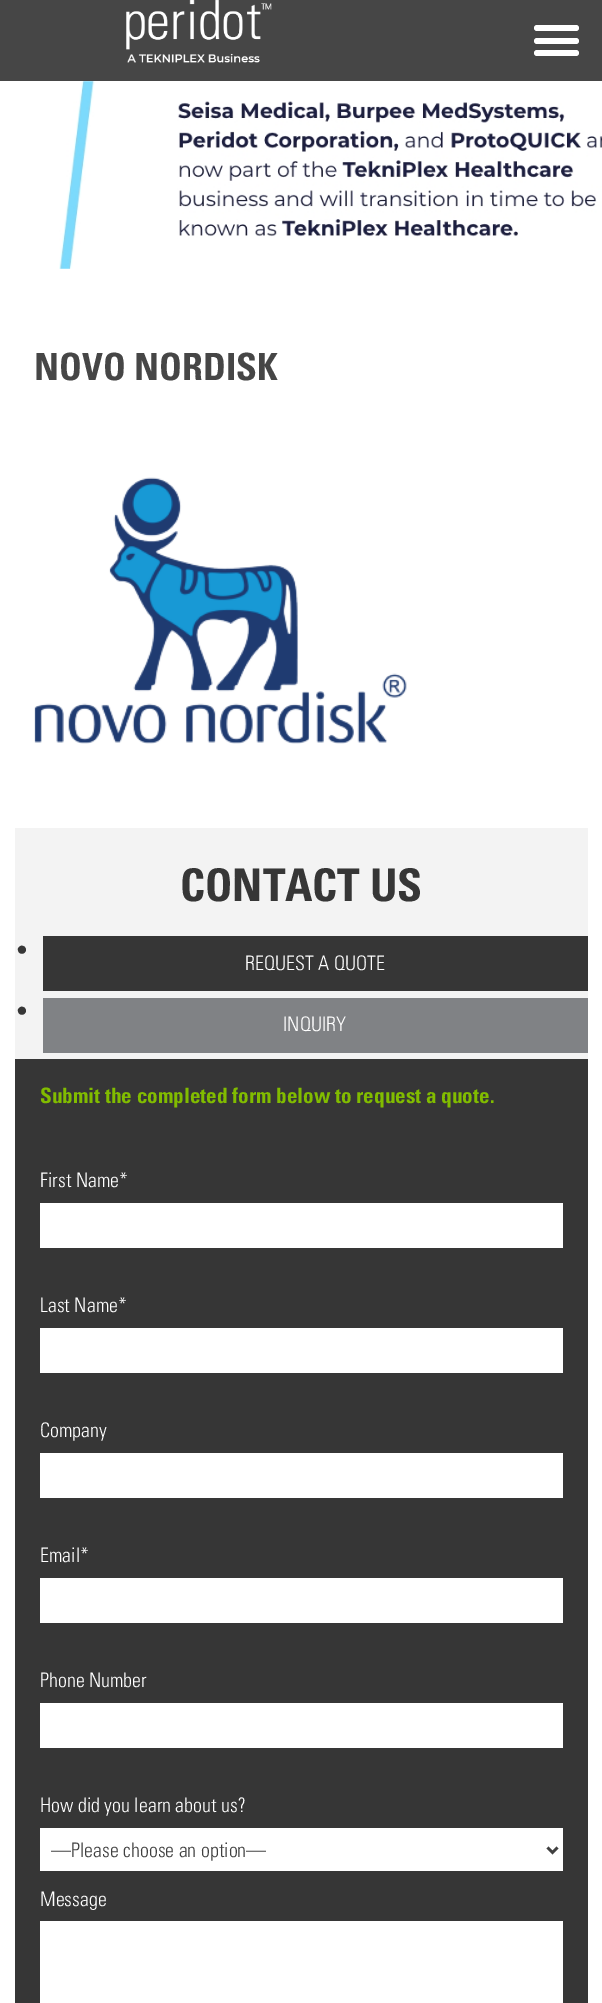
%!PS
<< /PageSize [602 2003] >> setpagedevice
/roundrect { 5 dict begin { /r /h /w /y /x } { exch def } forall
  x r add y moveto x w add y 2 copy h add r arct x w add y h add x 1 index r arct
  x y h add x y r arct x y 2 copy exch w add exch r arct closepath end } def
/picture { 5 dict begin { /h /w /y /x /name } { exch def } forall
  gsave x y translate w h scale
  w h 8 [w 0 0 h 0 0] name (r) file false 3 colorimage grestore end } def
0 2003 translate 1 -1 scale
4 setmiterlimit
1 setgray
0 0 602 2003 rectfill
0.275 setgray
0 0 602 81 rectfill
(img1.rgb) 126 0 146 63 picture
1 setgray
534 25 45 6 3 roundrect fill
534 38 45 6 3 roundrect fill
534 50 45 6 3 roundrect fill
(img2.rgb) 59 81 543 188 picture
/Univers-Bold [37.5 0 0 -37.5 0 0] selectfont
0.275 setgray
34 380 moveto (NOVO NORDISK) show
(img3.rgb) 34 477 373 267 picture
0.953 setgray
15 828 573 231 rectfill
/Univers-Bold [45 0 0 -45 0 0] selectfont
0.212 setgray
180 901 moveto (CONTACT US) show
/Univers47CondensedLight-Light [23 0 0 -23 0 0] selectfont
15 958 moveto (•) show
43 936 545 55 rectfill
/Univers47CondensedLight-Light [20 0 0 -20 0 0] selectfont
1 setgray
245 970 moveto (REQUEST A QUOTE) show
/Univers47CondensedLight-Light [23 0 0 -23 0 0] selectfont
0.212 setgray
15 1019 moveto (•) show
0.502 0.51 0.522 setrgbcolor
43 998 545 55 rectfill
/Univers47CondensedLight-Light [20 0 0 -20 0 0] selectfont
1 setgray
283 1031 moveto (INQUIRY) show
0.212 setgray
15 1059 573 944 rectfill
/Univers-Bold [21.25 0 0 -21.25 0 0] selectfont
0.506 0.737 0 setrgbcolor
40 1103 moveto (Submit the completed form below to request a quote.) show
/Univers47CondensedLight-Light [20 0 0 -20 0 0] selectfont
1 setgray
40 1187 moveto (First Name*) show
40 1203 523 45 rectfill
40 1312 moveto (Last Name*) show
40 1328 523 45 rectfill
40 1437 moveto (Company) show
40 1453 523 45 rectfill
40 1562 moveto (Email*) show
40 1578 523 45 rectfill
40 1687 moveto (Phone Number) show
40 1703 523 45 rectfill
40 1812 moveto (How did you learn about us?) show
40 1828 523 43 rectfill
0.251 setgray
2.5 setlinewidth
newpath 547.5 1847.5 moveto 552.5 1852.5 lineto 557.5 1847.5 lineto stroke
51 1857 moveto (—Please choose an option—) show
1 setgray
40 1906 moveto (Message) show
40 1921 523 82 rectfill
showpage
